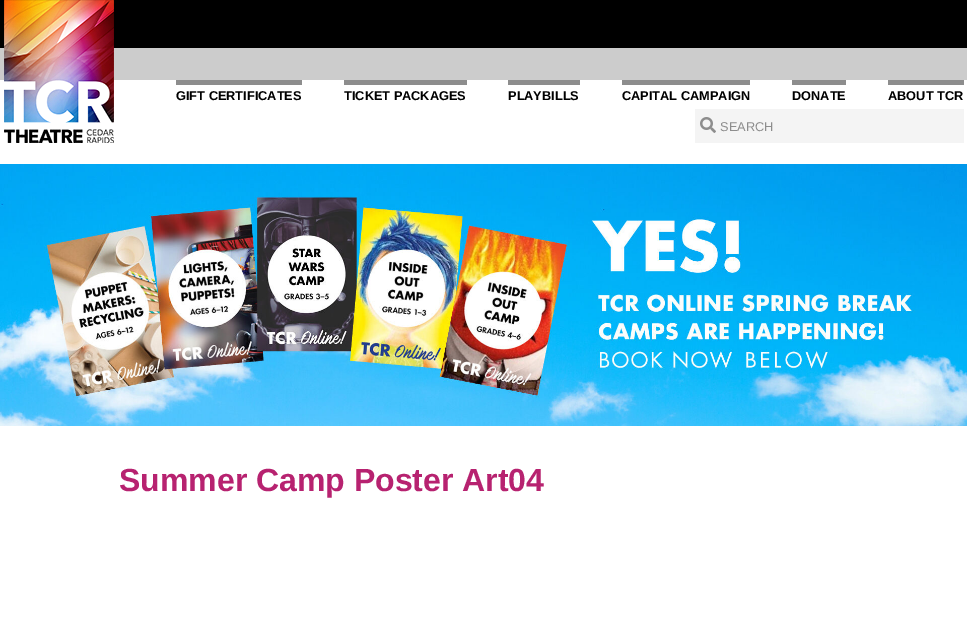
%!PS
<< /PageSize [967 619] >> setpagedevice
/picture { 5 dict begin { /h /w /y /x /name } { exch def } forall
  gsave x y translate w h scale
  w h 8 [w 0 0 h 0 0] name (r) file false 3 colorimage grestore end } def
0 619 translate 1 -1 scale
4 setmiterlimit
0 setgray
0 0 967 619 rectfill
1 setgray
0 80 967 84 rectfill
0.8 setgray
0 48 967 32 rectfill
(img1.rgb) 4 0 110 143 picture
0.553 setgray
176 80 126 5 rectfill
/LiberationSans-Bold [12.75 0 0 -12.75 0 0] selectfont
0 setgray
176 100 moveto (GIFT CERTIFICATES) show
0.553 setgray
344 80 123 5 rectfill
0 setgray
344 100 moveto (TICKET PACKAGES) show
0.553 setgray
508 80 72 5 rectfill
0 setgray
508 100 moveto (PLAYBILLS) show
0.553 setgray
622 80 128 5 rectfill
0 setgray
622 100 moveto (CAPITAL CAMPAIGN) show
0.553 setgray
792 80 54 5 rectfill
0 setgray
792 100 moveto (DONATE) show
0.553 setgray
888 80 76 5 rectfill
0 setgray
888 100 moveto (ABOUT TCR) show
0.957 setgray
695 109 269 34 rectfill
(img2.rgb) 700 117 16 16 picture
/LiberationSans-Regular [12.75 0 0 -12.75 0 0] selectfont
0.553 setgray
720 131 moveto (SEARCH) show
(img3.rgb) 0 164 967 262 picture
1 setgray
0 426 967 193 rectfill
/LiberationSans-Bold [32 0 0 -32 0 0] selectfont
0.718 0.133 0.439 setrgbcolor
119 491 moveto (Summer Camp Poster Art04) show
showpage
